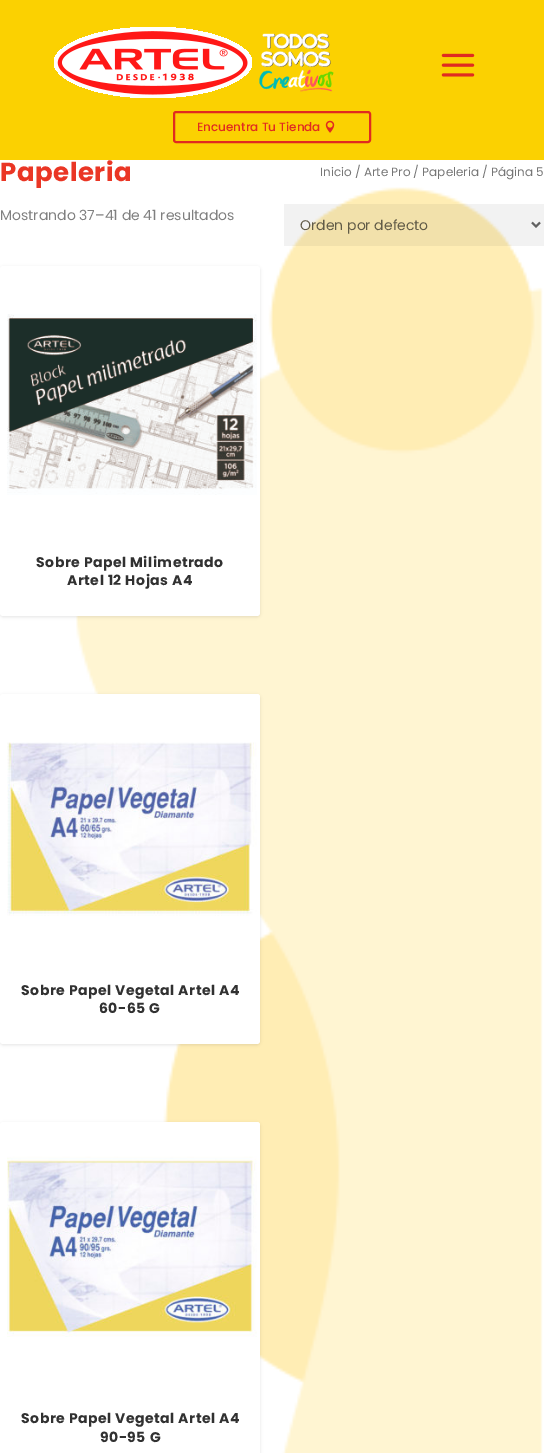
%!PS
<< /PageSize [544 1453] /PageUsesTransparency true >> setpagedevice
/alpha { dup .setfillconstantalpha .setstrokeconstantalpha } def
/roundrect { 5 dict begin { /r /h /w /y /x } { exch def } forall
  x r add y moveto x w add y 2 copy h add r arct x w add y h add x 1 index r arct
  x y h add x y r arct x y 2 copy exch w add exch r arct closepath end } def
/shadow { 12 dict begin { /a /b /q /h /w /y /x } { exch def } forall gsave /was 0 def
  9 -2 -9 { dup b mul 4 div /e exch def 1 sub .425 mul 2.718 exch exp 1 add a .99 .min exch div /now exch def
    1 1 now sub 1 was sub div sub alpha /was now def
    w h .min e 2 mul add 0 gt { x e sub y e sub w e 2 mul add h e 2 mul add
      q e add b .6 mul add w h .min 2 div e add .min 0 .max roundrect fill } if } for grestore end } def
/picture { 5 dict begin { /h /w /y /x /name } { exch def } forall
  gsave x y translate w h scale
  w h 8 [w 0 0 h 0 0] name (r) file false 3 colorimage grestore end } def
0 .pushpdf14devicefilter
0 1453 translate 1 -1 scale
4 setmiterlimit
1 setgray
0 0 544 1453 rectfill
0.984 0.82 0.004 setrgbcolor
0 0 544 160 rectfill
(img1.rgb) 54 27 280 71 picture
(img2.rgb) 441 53 34 24 picture
0.878 0.169 0.125 setrgbcolor
2 setlinewidth
174 112 196 30 2 roundrect stroke
/Poppins-Medium [12 0 0 -12 0 0] selectfont
197 131 moveto (Encuentra Tu Tienda) show
(img3.rgb) 325 120 10 13 picture
(img4.rgb) 74 187 469 1266 picture
/Poppins-Bold [26 0 0 -26 0 0] selectfont
0.918 0.212 0.145 setrgbcolor
0 181 moveto 0.5 0 (Papeleria) ashow
/Poppins-Regular [12 0 0 -12 0 0] selectfont
0.463 setgray
320 176 moveto (Inicio / Arte Pro / Papeleria / Página 5) show
/Poppins-Regular [14 0 0 -14 0 0] selectfont
0.502 setgray
0 220 moveto (Mostrando 37–41 de 41 resultados) show
0.05 alpha
0 setgray
284 204 260 42 rectfill
1 alpha
0.38 setgray
newpath 532 222.5 moveto 536 226.5 lineto 540 222.5 lineto stroke
0.38 0.357 0.278 setrgbcolor
300 230 moveto (Orden por defecto) show
0 setgray
0 267 260 350 3 1.5 0.1 shadow
1 setgray
0 266 260 350 3 roundrect fill
(img5.rgb) 7 314 250 181 picture
/Poppins-Bold [14 0 0 -14 0 0] selectfont
0.192 setgray
36 567 moveto 0.5 0 (Sobre Papel Milimetrado) ashow
67 585 moveto 0.5 0 (Artel 12 Hojas A4) ashow
0 setgray
0 695 260 350 3 1.5 0.1 shadow
1 setgray
0 694 260 350 3 roundrect fill
(img6.rgb) 7 694 253 222 picture
0.192 setgray
21 995 moveto 0.5 0 (Sobre Papel Vegetal Artel A4) ashow
99 1013 moveto 0.5 0 (60-65 G) ashow
0 setgray
0 1123 260 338 3 1.5 0.1 shadow
1 setgray
0 1122 260 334 3 roundrect fill
(img7.rgb) 7 1122 253 215 picture
0.192 setgray
21 1423 moveto 0.5 0 (Sobre Papel Vegetal Artel A4) ashow
100 1442 moveto 0.5 0 (90-95 G) ashow
.poppdf14devicefilter showpage
